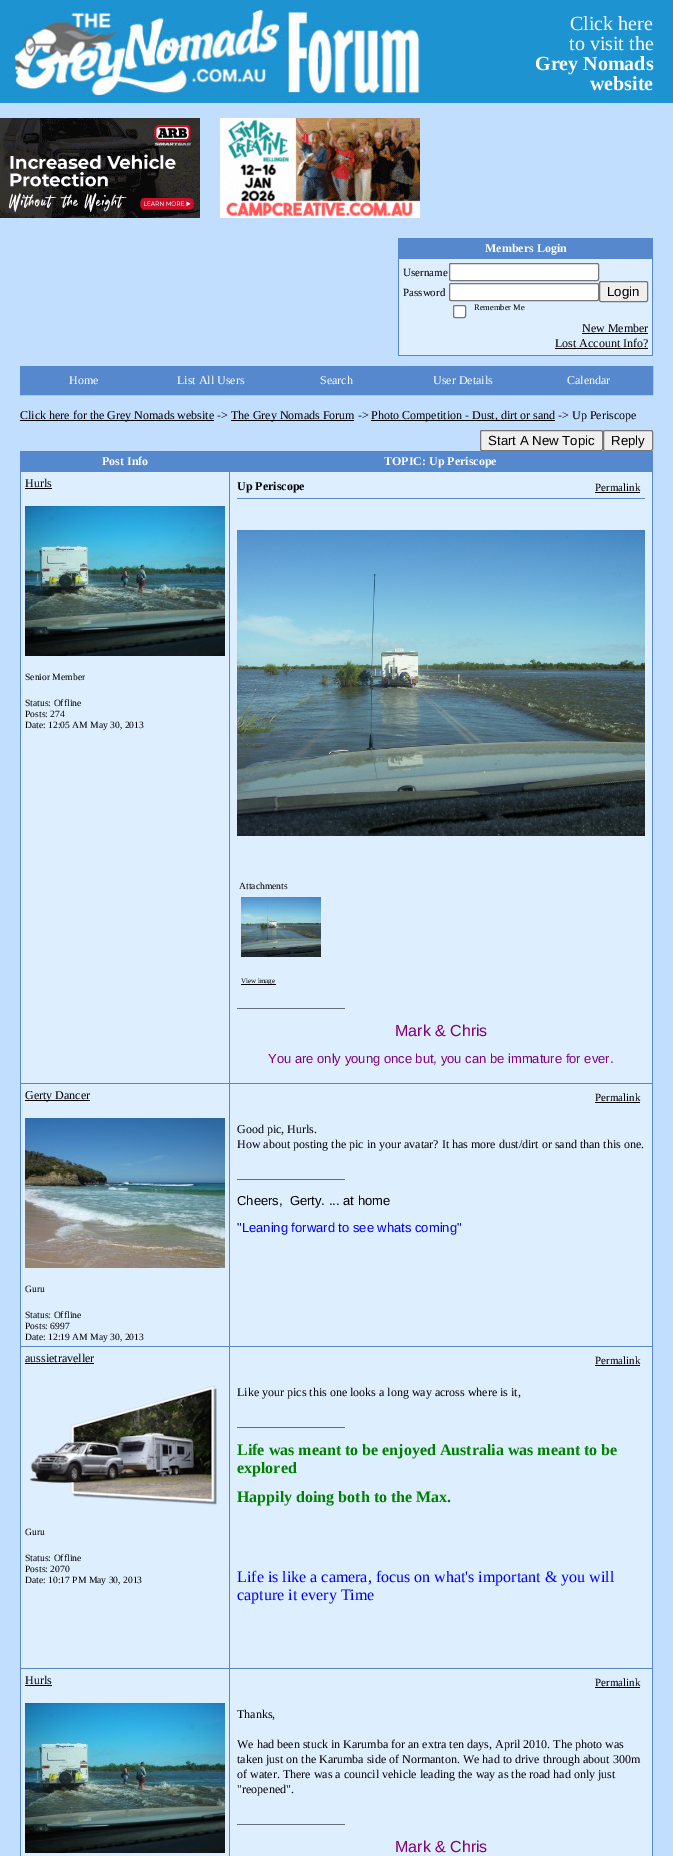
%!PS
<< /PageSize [673 1856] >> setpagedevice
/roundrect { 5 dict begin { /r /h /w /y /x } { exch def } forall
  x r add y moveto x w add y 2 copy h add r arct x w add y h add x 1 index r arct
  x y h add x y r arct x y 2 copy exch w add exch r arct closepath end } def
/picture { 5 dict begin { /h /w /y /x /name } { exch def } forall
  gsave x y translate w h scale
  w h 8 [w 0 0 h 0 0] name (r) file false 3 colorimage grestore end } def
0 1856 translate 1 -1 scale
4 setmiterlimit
0.757 0.871 0.996 setrgbcolor
0 0 673 1856 rectfill
0.114 0.576 0.82 setrgbcolor
0 0 673 103 rectfill
(img1.rgb) 14 9 406 88 picture
/LiberationSerif-Regular [20 0 0 -20 0 0] selectfont
1 setgray
570 30 moveto (Click here) show
569 50 moveto (to visit the) show
/LiberationSerif-Bold [20 0 0 -20 0 0] selectfont
535 70 moveto (Grey Nomads) show
590 90 moveto (website) show
(img2.rgb) 0 118 200 100 picture
(img3.rgb) 220 118 200 100 picture
0.333 0.533 0.8 setrgbcolor
398 238 255 1 rectfill
652 238 1 118 rectfill
398 355 255 1 rectfill
398 238 1 118 rectfill
399 239 253 19 rectfill
398 258 255 1 rectfill
/LiberationSerif-Bold [12 0 0 -12 0 0] selectfont
1 setgray
485 252 moveto (Members Login) show
0.867 0.933 1 setrgbcolor
399 259 253 96 rectfill
/LiberationSerif-Regular [11 0 0 -11 0 0] selectfont
0 setgray
403 276 moveto (Username) show
1 setgray
449.5 263.5 149 17 1.5 roundrect gsave fill grestore
0.463 setgray
stroke
0 setgray
403 296 moveto (Password) show
1 setgray
449.5 283.5 149 17 1.5 roundrect gsave fill grestore
0.463 setgray
stroke
0.937 setgray
599.5 281.5 48 20 1.5 roundrect gsave fill grestore
0.463 setgray
stroke
/LiberationSans-Regular [13.25 0 0 -13.25 0 0] selectfont
0 setgray
607 296 moveto (Login) show
1 setgray
453.5 305.5 12 12 1.5 roundrect gsave fill grestore
0.463 setgray
stroke
/LiberationSerif-Regular [8.5 0 0 -8.5 0 0] selectfont
0 setgray
474 310 moveto (Remember Me) show
/LiberationSerif-Regular [12 0 0 -12 0 0] selectfont
582 332 moveto (New Member) show
582 333 66 1 rectfill
555 347 moveto (Lost Account Info?) show
555 348 93 1 rectfill
0.333 0.533 0.8 setrgbcolor
20.5 366.5 632 28 rectstroke
21 367 631 27 rectfill
1 setgray
69 384 moveto (Home) show
177 384 moveto (List All Users) show
320 384 moveto (Search) show
433 384 moveto (User Details) show
567 384 moveto (Calendar) show
0 setgray
20 420 194 1 rectfill
20 419 moveto (Click here for the Grey Nomads website ->) show
231 420 123 1 rectfill
231 419 moveto (The Grey Nomads Forum ->) show
371 420 184 1 rectfill
371 419 moveto (Photo Competition - Dust, dirt or sand -> Up Periscope) show
0.937 setgray
480.5 430.5 122 20 1.5 roundrect gsave fill grestore
0.463 setgray
stroke
/LiberationSans-Regular [13.25 0 0 -13.25 0 0] selectfont
0 setgray
488 445 moveto (Start A New Topic) show
0.937 setgray
603.5 430.5 49 20 1.5 roundrect gsave fill grestore
0.463 setgray
stroke
0 setgray
611 445 moveto (Reply) show
0.333 0.533 0.8 setrgbcolor
20 451 633 1 rectfill
652 451 1 1405 rectfill
20 451 1 1405 rectfill
21 452 631 19 rectfill
/LiberationSerif-Bold [12 0 0 -12 0 0] selectfont
1 setgray
102 465 moveto (Post Info) show
384 465 moveto (TOPIC: Up Periscope) show
0.867 0.933 1 setrgbcolor
21 472 208 611 rectfill
0.333 0.533 0.8 setrgbcolor
229 471 424 1 rectfill
229 1083 424 1 rectfill
229 1346 424 1 rectfill
229 1668 424 1 rectfill
229 1668 1 188 rectfill
20 1668 210 1 rectfill
229 1346 1 323 rectfill
20 1346 210 1 rectfill
229 1083 1 264 rectfill
20 1083 210 1 rectfill
229 471 1 613 rectfill
20 471 210 1 rectfill
/LiberationSerif-Regular [12 0 0 -12 0 0] selectfont
0 setgray
25 487 moveto (Hurls) show
25 488 27 1 rectfill
(img4.rgb) 25 506 200 150 picture
/LiberationSerif-Regular [9.6 0 0 -9.6 0 0] selectfont
25 680 moveto (Senior Member) show
25 706 moveto (Status: Offline) show
25 717 moveto (Posts: 274) show
25 728 moveto (Date: 12:05 AM May 30, 2013) show
0.867 0.933 1 setrgbcolor
230 472 422 611 rectfill
/LiberationSerif-Bold [12 0 0 -12 0 0] selectfont
0 setgray
237 490 moveto (Up Periscope) show
/LiberationSerif-Regular [11 0 0 -11 0 0] selectfont
595 491 moveto (Permalink) show
595 492 45 1 rectfill
0.333 0.533 0.8 setrgbcolor
237 498 408 1 rectfill
(img5.rgb) 237 530 408 306 picture
/LiberationSerif-Regular [9.6 0 0 -9.6 0 0] selectfont
0 setgray
239 889 moveto (Attachments) show
(img6.rgb) 241 897 80 60 picture
241 984 35 1 rectfill
/LiberationSerif-Regular [7 0 0 -7 0 0] selectfont
241 983 moveto (View image) show
/LiberationSerif-Regular [12 0 0 -12 0 0] selectfont
237 1007 moveto (__________________) show
/LiberationSans-Regular [16 0 0 -16 0 0] selectfont
0.502 0 0.502 setrgbcolor
395 1036 moveto (Mark & Chris) show
/LiberationSans-Regular [13 0 0 -13 0 0] selectfont
268 1063 moveto (You are only young once but, you can be immature for ever.) show
0.867 0.933 1 setrgbcolor
21 1084 208 262 rectfill
0 setgray
25 1100 65 1 rectfill
/LiberationSerif-Regular [12 0 0 -12 0 0] selectfont
25 1099 moveto (Gerty Dancer) show
(img7.rgb) 25 1118 200 150 picture
/LiberationSerif-Regular [9.6 0 0 -9.6 0 0] selectfont
25 1292 moveto (Guru) show
25 1318 moveto (Status: Offline) show
25 1329 moveto (Posts: 6997) show
25 1340 moveto (Date: 12:19 AM May 30, 2013) show
0.867 0.933 1 setrgbcolor
230 1084 422 262 rectfill
/LiberationSerif-Regular [11 0 0 -11 0 0] selectfont
0 setgray
595 1101 moveto (Permalink) show
595 1102 45 1 rectfill
/LiberationSerif-Regular [12 0 0 -12 0 0] selectfont
237 1133 moveto (Good pic, Hurls.) show
237 1148 moveto (How about posting the pic in your avatar? It has more dust/dirt or sand than this one.) show
237 1178 moveto (__________________) show
/LiberationSans-Regular [13 0 0 -13 0 0] selectfont
237 1205 moveto (Cheers,  Gerty. ... at home) show
0 0 1 setrgbcolor
237 1232 moveto ("Leaning forward to see whats coming") show
0.867 0.933 1 setrgbcolor
21 1347 208 321 rectfill
/LiberationSerif-Regular [12 0 0 -12 0 0] selectfont
0 setgray
25 1362 moveto (aussietraveller) show
25 1363 69 1 rectfill
(img8.rgb) 29 1385 188 120 picture
/LiberationSerif-Regular [9.6 0 0 -9.6 0 0] selectfont
25 1535 moveto (Guru) show
25 1561 moveto (Status: Offline) show
25 1572 moveto (Posts: 2070) show
25 1583 moveto (Date: 10:17 PM May 30, 2013) show
0.867 0.933 1 setrgbcolor
230 1347 422 321 rectfill
/LiberationSerif-Regular [11 0 0 -11 0 0] selectfont
0 setgray
595 1364 moveto (Permalink) show
595 1365 45 1 rectfill
/LiberationSerif-Regular [12 0 0 -12 0 0] selectfont
237 1396 moveto (Like your pics this one looks a long way across where is it,) show
237 1426 moveto (__________________) show
/LiberationSerif-Bold [16 0 0 -16 0 0] selectfont
0 0.502 0 setrgbcolor
237 1455 moveto (Life was meant to be enjoyed Australia was meant to be) show
237 1473 moveto (explored) show
237 1502 moveto (Happily doing both to the Max.) show
/LiberationSerif-Regular [16 0 0 -16 0 0] selectfont
0 0 1 setrgbcolor
237 1582 moveto (Life is like a camera, focus on what's important & you will) show
237 1600 moveto (capture it every Time) show
0.867 0.933 1 setrgbcolor
21 1669 208 187 rectfill
/LiberationSerif-Regular [12 0 0 -12 0 0] selectfont
0 setgray
25 1684 moveto (Hurls) show
25 1685 27 1 rectfill
(img4.rgb) 25 1703 200 150 picture
0.867 0.933 1 setrgbcolor
230 1669 422 187 rectfill
/LiberationSerif-Regular [11 0 0 -11 0 0] selectfont
0 setgray
595 1686 moveto (Permalink) show
595 1687 45 1 rectfill
/LiberationSerif-Regular [12 0 0 -12 0 0] selectfont
237 1718 moveto (Thanks,) show
237 1748 moveto (We had been stuck in Karumba for an extra ten days, April 2010. The photo was) show
237 1763 moveto (taken just on the Karumba side of Normanton. We had to drive through about 300m) show
237 1778 moveto (of water. There was a council vehicle leading the way as the road had only just) show
237 1793 moveto ("reopened".) show
237 1823 moveto (__________________) show
/LiberationSans-Regular [16 0 0 -16 0 0] selectfont
0.502 0 0.502 setrgbcolor
395 1852 moveto (Mark & Chris) show
showpage
